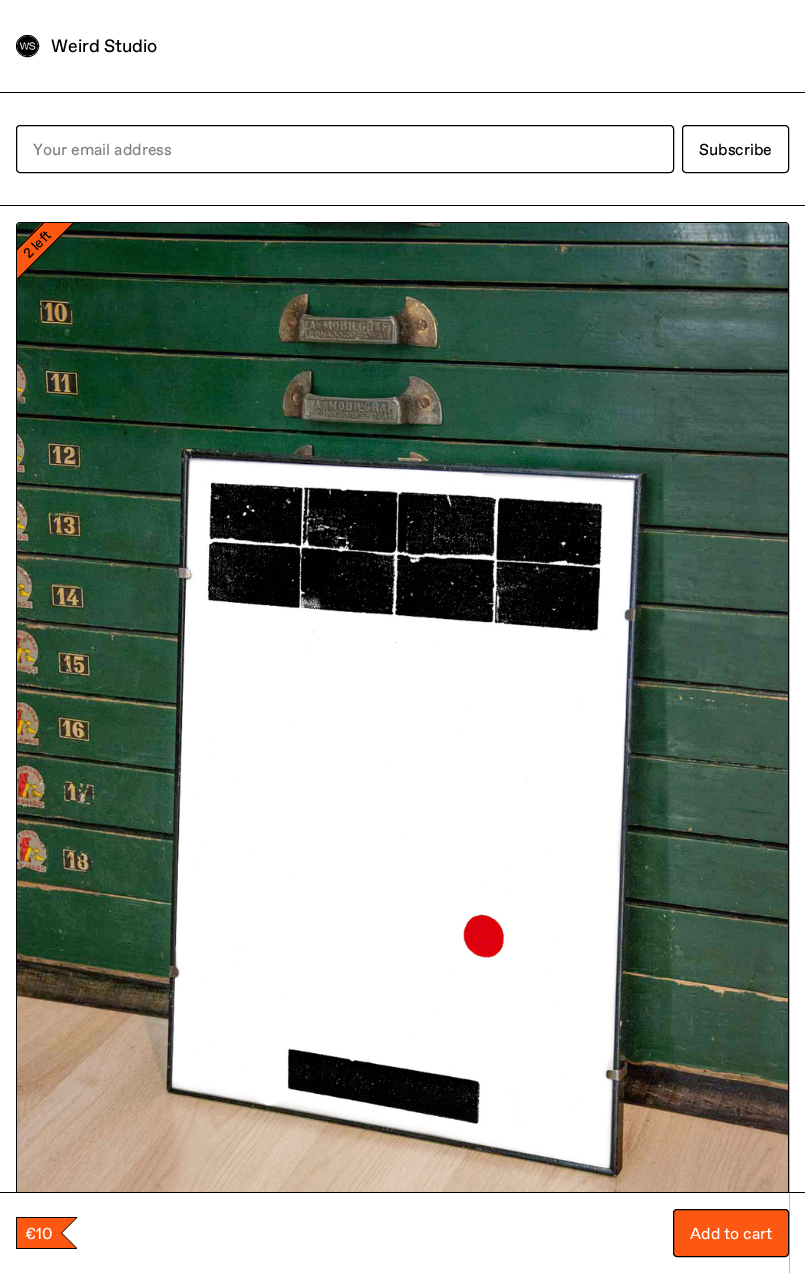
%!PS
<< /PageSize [805 1273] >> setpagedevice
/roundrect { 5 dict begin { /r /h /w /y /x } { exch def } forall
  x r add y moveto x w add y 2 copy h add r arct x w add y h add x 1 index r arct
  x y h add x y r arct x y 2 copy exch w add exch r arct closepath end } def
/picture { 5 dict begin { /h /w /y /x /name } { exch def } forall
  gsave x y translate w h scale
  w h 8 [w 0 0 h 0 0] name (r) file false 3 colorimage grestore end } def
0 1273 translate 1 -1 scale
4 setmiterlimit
1 setgray
0 0 805 1273 rectfill
0 setgray
0 92 805 1 rectfill
16.5 35.5 22 21 10.5 roundrect stroke
(img1.rgb) 17 36 21 20 picture
/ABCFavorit-Regular [18 0 0 -18 0 0] selectfont
51 52 moveto (Weird Studio) show
0 205 805 1 rectfill
16.5 125.5 657 47 3.5 roundrect stroke
/ABCFavorit-Regular [16 0 0 -16 0 0] selectfont
0.502 setgray
33 155 moveto (Your email address) show
0 setgray
682.5 125.5 106 47 3.5 roundrect stroke
699 155 moveto (Subscribe) show
16.5 222.5 772 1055 3.5 roundrect stroke
(img2.rgb) 17 223 771 969 picture
0.992 0.345 0.071 setrgbcolor
newpath 17 249 moveto 17 280 lineto 74 223 lineto 42 223 lineto closepath fill
gsave
newpath 17 249 moveto 42.5 223.5 lineto 73.5 223.5 lineto 17 280 lineto closepath clip newpath
0 setgray
newpath 2 264.5 moveto 58 208.5 lineto 73 223.5 lineto 17 279.5 lineto closepath stroke
grestore
/ABCFavorit-Regular [14 0 0 -14 0 0] selectfont
0 setgray
gsave 37 251 translate -45 rotate 0 0 moveto (left) show grestore
gsave 29 259 translate -45 rotate 0 0 moveto (2) show grestore
0 1192 805 1 rectfill
1 setgray
16 1193 773 80 rectfill
0 setgray
16 1217 61 1 rectfill
16 1248 61 1 rectfill
16 1217 1 32 rectfill
0.992 0.345 0.071 setrgbcolor
17 1218 44 30 rectfill
0 setgray
newpath 61 1218 moveto 77 1218 lineto 62 1233 lineto closepath 77 1248 moveto 61 1248 lineto 62 1233 lineto closepath fill
61 1232 1 2 rectfill
0.992 0.345 0.071 setrgbcolor
newpath 60 1218 moveto 76 1218 lineto 61 1233 lineto closepath 76 1248 moveto 60 1248 lineto 61 1233 lineto closepath fill
/ABCFavorit-Regular [16 0 0 -16 0 0] selectfont
1 setgray
25 1239 moveto (€10) show
0.992 0.345 0.071 setrgbcolor
673.5 1209.5 115 47 3.5 roundrect gsave fill grestore
0 setgray
stroke
1 setgray
690 1239 moveto (Add to cart) show
showpage
